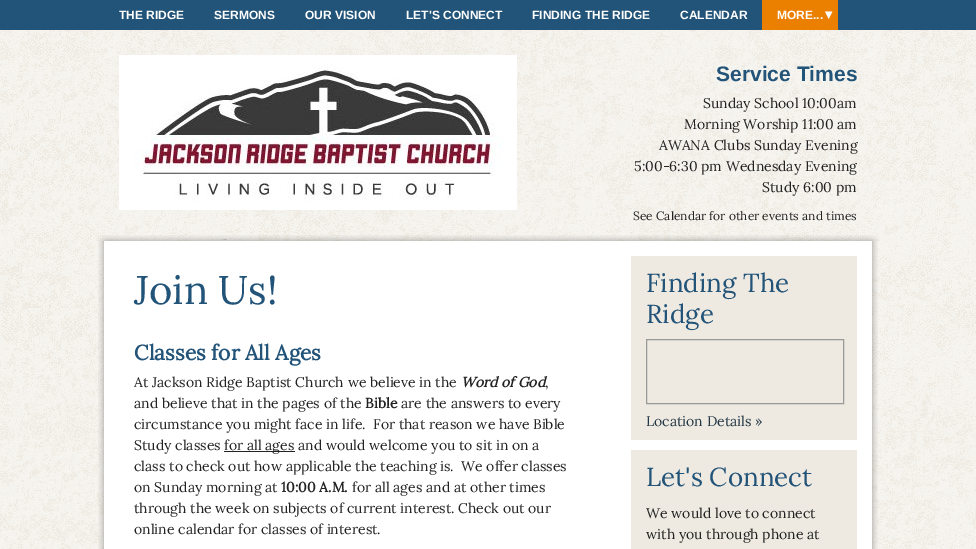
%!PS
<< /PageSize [976 549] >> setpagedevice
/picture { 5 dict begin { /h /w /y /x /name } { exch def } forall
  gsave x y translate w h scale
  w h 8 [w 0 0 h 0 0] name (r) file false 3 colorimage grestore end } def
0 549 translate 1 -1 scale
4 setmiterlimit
0.933 0.918 0.882 setrgbcolor
0 0 976 549 rectfill
(img1.rgb) 0 30 976 519 picture
0.133 0.325 0.471 setrgbcolor
0 0 976 30 rectfill
/LiberationSans-Bold [12 0 0 -12 0 0] selectfont
1 setgray
119 19 moveto (THE RIDGE) show
214 19 moveto (SERMONS) show
305 19 moveto (OUR VISION) show
406 19 moveto (LET'S CONNECT) show
532 19 moveto (FINDING THE RIDGE) show
680 19 moveto (CALENDAR) show
0.922 0.498 0 setrgbcolor
762 0 76 30 rectfill
1 setgray
777 19 moveto (MORE...) show
/DejaVuSans-Bold [14 0 0 -14 0 0] selectfont
825 19 moveto (▾) show
(img2.rgb) 119 55 398 155 picture
/LiberationSans-Bold [21 0 0 -21 0 0] selectfont
0.133 0.325 0.471 setrgbcolor
716 81 moveto (Service Times) show
/Lora-Regular [14 0 0 -14 0 0] selectfont
0.133 setgray
703 108 moveto (Sunday School 10:00am) show
684 129 moveto (Morning Worship 11:00 am) show
659 150 moveto (AWANA Clubs Sunday Evening) show
634 171 moveto (5:00-6:30 pm Wednesday Evening) show
762 192 moveto (Study 6:00 pm) show
/Lora-Regular [12 0 0 -12 0 0] selectfont
633 220 moveto (See Calendar for other events and times) show
(img3.rgb) 98 241 6 308 picture
1 setgray
104 241 768 308 rectfill
(img4.rgb) 96 235 784 6 picture
/Lora-Regular [40 0 0 -40 0 0] selectfont
0.133 0.325 0.471 setrgbcolor
134 304 moveto (Join Us!) show
/Lora-Bold [21 0 0 -21 0 0] selectfont
134 360 moveto (Classes for All Ages) show
/Lora-Regular [14 0 0 -14 0 0] selectfont
0.133 setgray
134 387 moveto (At Jackson Ridge Baptist Church we believe in the) show
/Lora-BoldItalic [14 0 0 -14 0 0] selectfont
461 387 moveto (Word of God) show
/Lora-Regular [14 0 0 -14 0 0] selectfont
545 387 moveto (,) show
134 408 moveto (and believe that in the pages of the) show
/Lora-Bold [14 0 0 -14 0 0] selectfont
365 408 moveto (Bible) show
/Lora-Regular [14 0 0 -14 0 0] selectfont
401 408 moveto (are the answers to every) show
134 429 moveto (circumstance you might face in life.  For that reason we have Bible) show
134 450 moveto (Study classes) show
224 451 71 1 rectfill
224 450 moveto (for all ages and would welcome you to sit in on a) show
134 471 moveto (class to check out how applicable the teaching is.  We offer classes) show
134 492 moveto (on Sunday morning at) show
/Lora-Bold [14 0 0 -14 0 0] selectfont
281 492 moveto (10:00 A.M.) show
/Lora-Regular [14 0 0 -14 0 0] selectfont
352 492 moveto (for all ages and at other times) show
134 513 moveto (through the week on subjects of current interest. Check out our) show
134 534 moveto (online calendar for classes of interest.) show
0.933 0.918 0.882 setrgbcolor
631 256 226 184 rectfill
/Lora-Regular [26 0 0 -26 0 0] selectfont
0.133 0.325 0.471 setrgbcolor
646 292 moveto (Finding The) show
646 323 moveto (Ridge) show
0.6 setgray
646.5 339.5 197 64 rectstroke
/Lora-Regular [14 0 0 -14 0 0] selectfont
0.129 0.208 0.271 setrgbcolor
646 426 moveto (Location Details ») show
0.933 0.918 0.882 setrgbcolor
631 450 226 99 rectfill
/Lora-Regular [26 0 0 -26 0 0] selectfont
0.133 0.325 0.471 setrgbcolor
646 486 moveto (Let's Connect) show
/Lora-Regular [14 0 0 -14 0 0] selectfont
0.133 setgray
646 518 moveto (We would love to connect) show
646 539 moveto (with you through phone at) show
(img5.rgb) 872 241 6 308 picture
showpage
